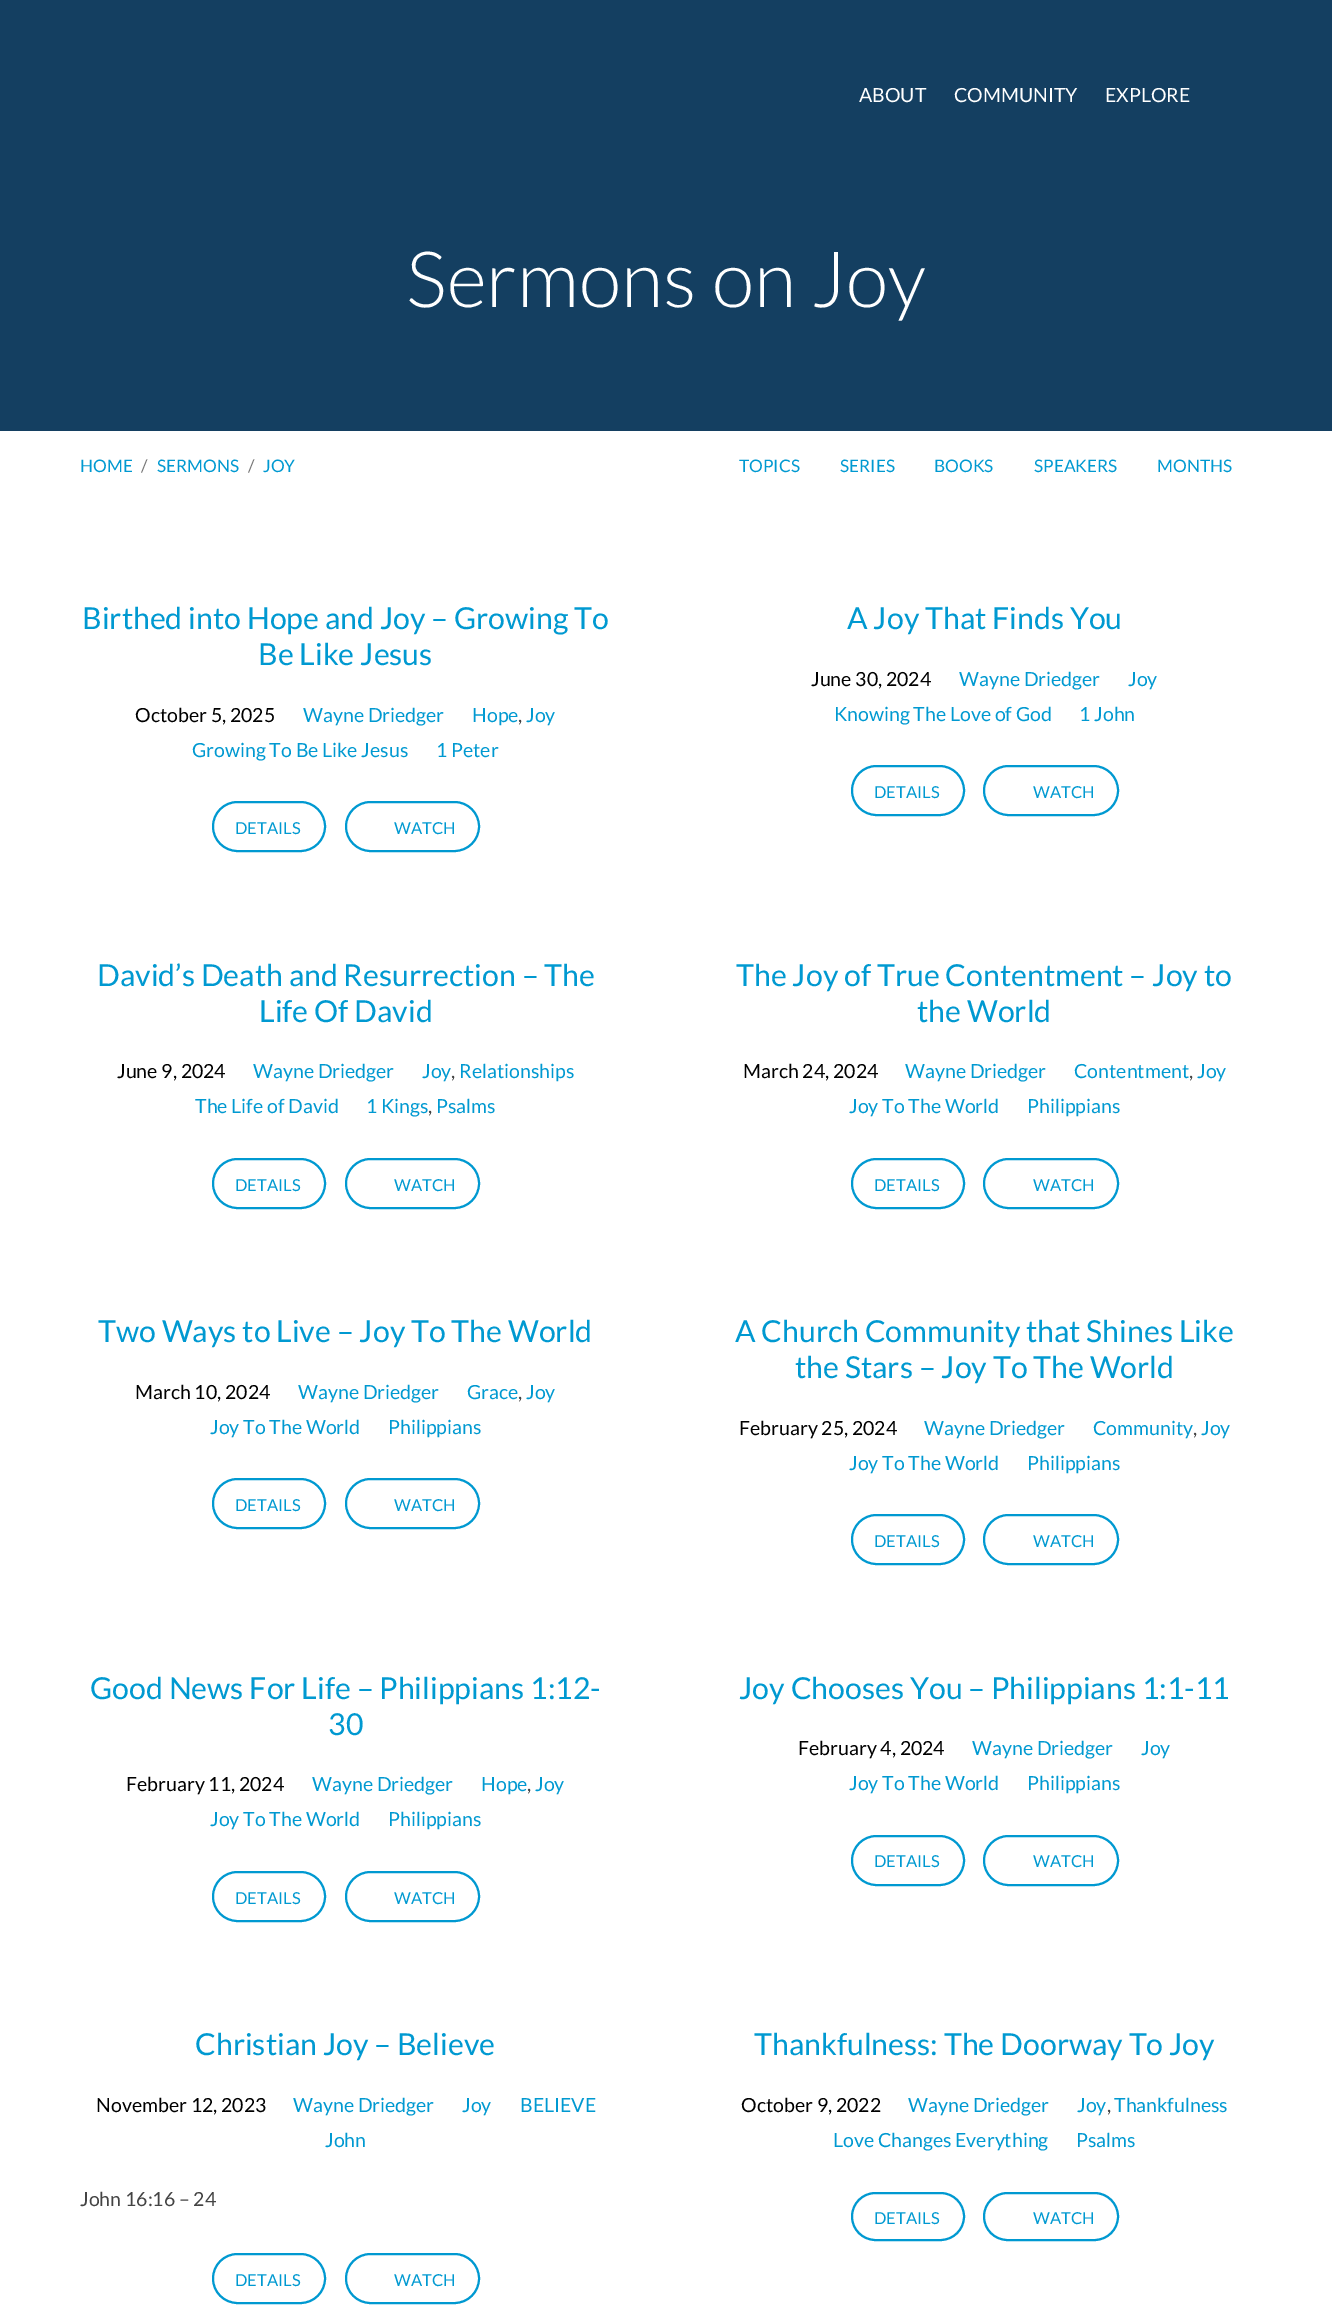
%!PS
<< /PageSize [1332 2306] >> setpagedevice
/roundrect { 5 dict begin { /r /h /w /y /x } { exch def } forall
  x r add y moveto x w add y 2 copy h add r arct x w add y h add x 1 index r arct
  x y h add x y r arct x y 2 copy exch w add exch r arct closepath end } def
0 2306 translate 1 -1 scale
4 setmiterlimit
1 setgray
0 0 1332 2306 rectfill
0.078 0.247 0.38 setrgbcolor
0 0 1332 431 rectfill
/Lato-Regular [19.5 0 0 -19.5 0 0] selectfont
1 setgray
859 102 moveto (ABOUT) show
954 102 moveto (COMMUNITY) show
1105 102 moveto (EXPLORE) show
/Lato-Light [77.75 0 0 -77.75 0 0] selectfont
406 307 moveto (Sermons on Joy) show
/Lato-Regular [17.25 0 0 -17.25 0 0] selectfont
0 0.6 0.82 setrgbcolor
80 472 moveto (HOME) show
0.467 setgray
141 472 moveto (/) show
0 0.6 0.82 setrgbcolor
157 472 moveto (SERMONS) show
0.467 setgray
248 472 moveto (/) show
0 0.6 0.82 setrgbcolor
263 472 moveto (JOY) show
739 472 moveto (TOPICS) show
840 472 moveto (SERIES) show
934 472 moveto (BOOKS) show
1034 472 moveto (SPEAKERS) show
1157 472 moveto (MONTHS) show
/Lato-Regular [30.25 0 0 -30.25 0 0] selectfont
82 629 moveto (Birthed into Hope and Joy – Growing To) show
258 665 moveto (Be Like Jesus) show
/Lato-Regular [19.5 0 0 -19.5 0 0] selectfont
0 setgray
135 722 moveto (October 5, 2025) show
0 0.6 0.82 setrgbcolor
303 722 moveto (Wayne Driedger) show
472 722 moveto (Hope) show
0.267 setgray
518 722 moveto (,) show
0 0.6 0.82 setrgbcolor
526 722 moveto (Joy) show
192 757 moveto (Growing To Be Like Jesus) show
436 757 moveto (1 Peter) show
2 setlinewidth
213 802 112 49 24.5 roundrect stroke
/Lato-Regular [16.5 0 0 -16.5 0 0] selectfont
235 834 moveto (DETAILS) show
346 802 133 49 24.5 roundrect stroke
394 834 moveto (WATCH) show
/Lato-Regular [30.25 0 0 -30.25 0 0] selectfont
847 629 moveto (A Joy That Finds You) show
/Lato-Regular [19.5 0 0 -19.5 0 0] selectfont
0 setgray
811 686 moveto (June 30, 2024) show
0 0.6 0.82 setrgbcolor
959 686 moveto (Wayne Driedger) show
1128 686 moveto (Joy) show
834 721 moveto (Knowing The Love of God) show
1079 721 moveto (1 John) show
852 766 112 49 24.5 roundrect stroke
/Lato-Regular [16.5 0 0 -16.5 0 0] selectfont
874 798 moveto (DETAILS) show
984 766 134 49 24.5 roundrect stroke
1033 798 moveto (WATCH) show
/Lato-Regular [30.25 0 0 -30.25 0 0] selectfont
97 986 moveto (David’s Death and Resurrection – The) show
259 1022 moveto (Life Of David) show
/Lato-Regular [19.5 0 0 -19.5 0 0] selectfont
0 setgray
117 1078 moveto (June 9, 2024) show
0 0.6 0.82 setrgbcolor
253 1078 moveto (Wayne Driedger) show
422 1078 moveto (Joy) show
0.267 setgray
451 1078 moveto (,) show
0 0.6 0.82 setrgbcolor
459 1078 moveto (Relationships) show
195 1113 moveto (The Life of David) show
366 1113 moveto (1 Kings) show
0.267 setgray
428 1113 moveto (,) show
0 0.6 0.82 setrgbcolor
436 1113 moveto (Psalms) show
213 1159 112 49 24.5 roundrect stroke
/Lato-Regular [16.5 0 0 -16.5 0 0] selectfont
235 1191 moveto (DETAILS) show
346 1159 133 49 24.5 roundrect stroke
394 1191 moveto (WATCH) show
/Lato-Regular [30.25 0 0 -30.25 0 0] selectfont
736 986 moveto (The Joy of True Contentment – Joy to) show
917 1022 moveto (the World) show
/Lato-Regular [19.5 0 0 -19.5 0 0] selectfont
0 setgray
743 1078 moveto (March 24, 2024) show
0 0.6 0.82 setrgbcolor
905 1078 moveto (Wayne Driedger) show
1074 1078 moveto (Contentment) show
0.267 setgray
1189 1078 moveto (,) show
0 0.6 0.82 setrgbcolor
1197 1078 moveto (Joy) show
849 1113 moveto (Joy To The World) show
1027 1113 moveto (Philippians) show
852 1159 112 49 24.5 roundrect stroke
/Lato-Regular [16.5 0 0 -16.5 0 0] selectfont
874 1191 moveto (DETAILS) show
984 1159 134 49 24.5 roundrect stroke
1033 1191 moveto (WATCH) show
/Lato-Regular [30.25 0 0 -30.25 0 0] selectfont
98 1342 moveto (Two Ways to Live – Joy To The World) show
/Lato-Regular [19.5 0 0 -19.5 0 0] selectfont
0 setgray
135 1399 moveto (March 10, 2024) show
0 0.6 0.82 setrgbcolor
298 1399 moveto (Wayne Driedger) show
467 1399 moveto (Grace) show
0.267 setgray
518 1399 moveto (,) show
0 0.6 0.82 setrgbcolor
526 1399 moveto (Joy) show
210 1434 moveto (Joy To The World) show
388 1434 moveto (Philippians) show
213 1479 112 49 24.5 roundrect stroke
/Lato-Regular [16.5 0 0 -16.5 0 0] selectfont
235 1511 moveto (DETAILS) show
346 1479 133 49 24.5 roundrect stroke
394 1511 moveto (WATCH) show
/Lato-Regular [30.25 0 0 -30.25 0 0] selectfont
735 1342 moveto (A Church Community that Shines Like) show
795 1378 moveto (the Stars – Joy To The World) show
/Lato-Regular [19.5 0 0 -19.5 0 0] selectfont
0 setgray
739 1435 moveto (February 25, 2024) show
0 0.6 0.82 setrgbcolor
924 1435 moveto (Wayne Driedger) show
1093 1435 moveto (Community) show
0.267 setgray
1193 1435 moveto (,) show
0 0.6 0.82 setrgbcolor
1201 1435 moveto (Joy) show
849 1470 moveto (Joy To The World) show
1027 1470 moveto (Philippians) show
852 1515 112 49 24.5 roundrect stroke
/Lato-Regular [16.5 0 0 -16.5 0 0] selectfont
874 1547 moveto (DETAILS) show
984 1515 134 49 24.5 roundrect stroke
1033 1547 moveto (WATCH) show
/Lato-Regular [30.25 0 0 -30.25 0 0] selectfont
90 1699 moveto (Good News For Life – Philippians 1:12-) show
328 1735 moveto (30) show
/Lato-Regular [19.5 0 0 -19.5 0 0] selectfont
0 setgray
126 1791 moveto (February 11, 2024) show
0 0.6 0.82 setrgbcolor
312 1791 moveto (Wayne Driedger) show
481 1791 moveto (Hope) show
0.267 setgray
527 1791 moveto (,) show
0 0.6 0.82 setrgbcolor
535 1791 moveto (Joy) show
210 1826 moveto (Joy To The World) show
388 1826 moveto (Philippians) show
213 1872 112 49 24.5 roundrect stroke
/Lato-Regular [16.5 0 0 -16.5 0 0] selectfont
235 1904 moveto (DETAILS) show
346 1872 133 49 24.5 roundrect stroke
394 1904 moveto (WATCH) show
/Lato-Regular [30.25 0 0 -30.25 0 0] selectfont
739 1699 moveto (Joy Chooses You – Philippians 1:1-11) show
/Lato-Regular [19.5 0 0 -19.5 0 0] selectfont
0 setgray
798 1755 moveto (February 4, 2024) show
0 0.6 0.82 setrgbcolor
972 1755 moveto (Wayne Driedger) show
1141 1755 moveto (Joy) show
849 1790 moveto (Joy To The World) show
1027 1790 moveto (Philippians) show
852 1836 112 49 24.5 roundrect stroke
/Lato-Regular [16.5 0 0 -16.5 0 0] selectfont
874 1867 moveto (DETAILS) show
984 1836 134 49 24.5 roundrect stroke
1033 1867 moveto (WATCH) show
/Lato-Regular [30.25 0 0 -30.25 0 0] selectfont
195 2055 moveto (Christian Joy – Believe) show
/Lato-Regular [19.5 0 0 -19.5 0 0] selectfont
0 setgray
96 2112 moveto (November 12, 2023) show
0 0.6 0.82 setrgbcolor
293 2112 moveto (Wayne Driedger) show
462 2112 moveto (Joy) show
520 2112 moveto (BELIEVE) show
325 2147 moveto (John) show
0.267 setgray
80 2206 moveto (John 16:16 – 24) show
0 0.6 0.82 setrgbcolor
213 2254 112 49 24.5 roundrect stroke
/Lato-Regular [16.5 0 0 -16.5 0 0] selectfont
235 2286 moveto (DETAILS) show
346 2254 133 49 24.5 roundrect stroke
394 2286 moveto (WATCH) show
/Lato-Regular [30.25 0 0 -30.25 0 0] selectfont
754 2055 moveto (Thankfulness: The Doorway To Joy) show
/Lato-Regular [19.5 0 0 -19.5 0 0] selectfont
0 setgray
741 2112 moveto (October 9, 2022) show
0 0.6 0.82 setrgbcolor
908 2112 moveto (Wayne Driedger) show
1077 2112 moveto (Joy) show
0.267 setgray
1107 2112 moveto (,) show
0 0.6 0.82 setrgbcolor
1114 2112 moveto (Thankfulness) show
833 2147 moveto (Love Changes Everything) show
1076 2147 moveto (Psalms) show
852 2193 112 47 23.5 roundrect stroke
/Lato-Regular [16.5 0 0 -16.5 0 0] selectfont
874 2224 moveto (DETAILS) show
984 2193 134 47 23.5 roundrect stroke
1033 2224 moveto (WATCH) show
showpage
